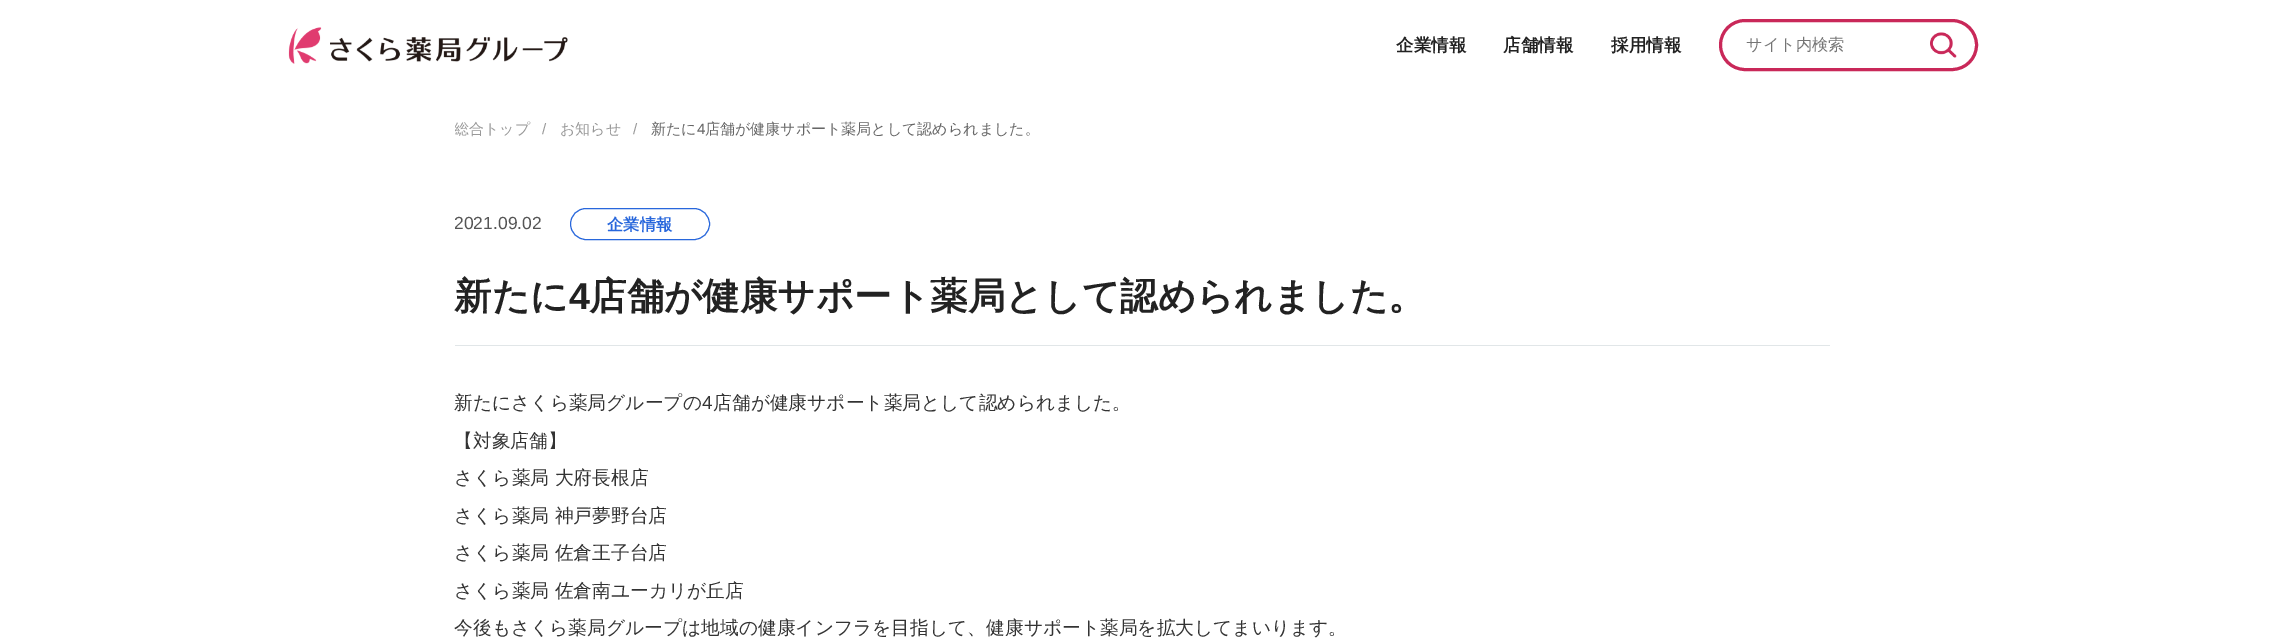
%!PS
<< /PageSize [2283 643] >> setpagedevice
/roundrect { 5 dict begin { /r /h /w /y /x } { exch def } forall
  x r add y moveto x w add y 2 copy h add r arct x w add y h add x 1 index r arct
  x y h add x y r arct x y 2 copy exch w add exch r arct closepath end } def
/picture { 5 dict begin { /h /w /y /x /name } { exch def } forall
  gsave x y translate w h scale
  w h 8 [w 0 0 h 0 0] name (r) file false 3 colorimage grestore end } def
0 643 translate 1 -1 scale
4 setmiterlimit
1 setgray
0 0 2283 643 rectfill
(img1.rgb) 288 27 280 37 picture
/WenQuanYiZenHei-Bold [17.5 0 0 -17.5 0 0] selectfont
0.133 setgray
1396 51 moveto (企業情報) show
1503 51 moveto (店舗情報) show
1611 51 moveto (採用情報) show
0.788 0.157 0.349 setrgbcolor
3 setlinewidth
1720.5 20.5 256 49 24.5 roundrect stroke
/WenQuanYiZenHei-Medium [16.25 0 0 -16.25 0 0] selectfont
0.459 setgray
1746 50 moveto (サイト内検索) show
(img2.rgb) 1930 32 27 26 picture
gsave
455 114 1375 26 rectclip
/WenQuanYiZenHei-Medium [15 0 0 -15 0 0] selectfont
0.6 setgray
454 134 moveto (総合トップ) show
grestore
/LiberationSans-Regular [15 0 0 -15 0 0] selectfont
0.6 setgray
542 134 moveto (/) show
/WenQuanYiZenHei-Medium [15 0 0 -15 0 0] selectfont
560 134 moveto (お知らせ) show
/LiberationSans-Regular [15 0 0 -15 0 0] selectfont
633 134 moveto (/) show
/WenQuanYiZenHei-Medium [15 0 0 -15 0 0] selectfont
0.4 setgray
651 134 moveto (新たに) show
/LiberationSans-Regular [15 0 0 -15 0 0] selectfont
697 134 moveto (4) show
/WenQuanYiZenHei-Medium [15 0 0 -15 0 0] selectfont
705 134 moveto (店舗が健康サポート薬局として認められました。) show
0.882 0.902 0.91 setrgbcolor
455 345 1375 1 rectfill
/LiberationSans-Regular [17.5 0 0 -17.5 0 0] selectfont
0.333 setgray
454 229 moveto (2021.09.02) show
0.157 0.404 0.863 setrgbcolor
1 setlinewidth
570.5 208.5 139 31 15.5 roundrect stroke
/WenQuanYiZenHei-Bold [16.25 0 0 -16.25 0 0] selectfont
607 230 moveto (企業情報) show
/WenQuanYiZenHei-Bold [37.5 0 0 -37.5 0 0] selectfont
0.133 setgray
454 309 moveto (新たに) show
/LiberationSans-Bold [37.5 0 0 -37.5 0 0] selectfont
569 309 moveto (4) show
/WenQuanYiZenHei-Bold [37.5 0 0 -37.5 0 0] selectfont
589 309 moveto (店舗が健康サポート薬局として認められました。) show
/WenQuanYiZenHei-Medium [18.75 0 0 -18.75 0 0] selectfont
0.2 setgray
454 409 moveto (新たにさくら薬局グループの) show
/LiberationSans-Regular [18.75 0 0 -18.75 0 0] selectfont
702 409 moveto (4) show
/WenQuanYiZenHei-Medium [18.75 0 0 -18.75 0 0] selectfont
713 409 moveto (店舗が健康サポート薬局として認められました。) show
454 447 moveto (【対象店舗】) show
454 484 moveto (さくら薬局 大府長根店) show
454 522 moveto (さくら薬局 神戸夢野台店) show
454 559 moveto (さくら薬局 佐倉王子台店) show
454 597 moveto (さくら薬局 佐倉南ユーカリが丘店) show
454 634 moveto (今後もさくら薬局グループは地域の健康インフラを目指して、健康サポート薬局を拡大してまいります。) show
showpage
